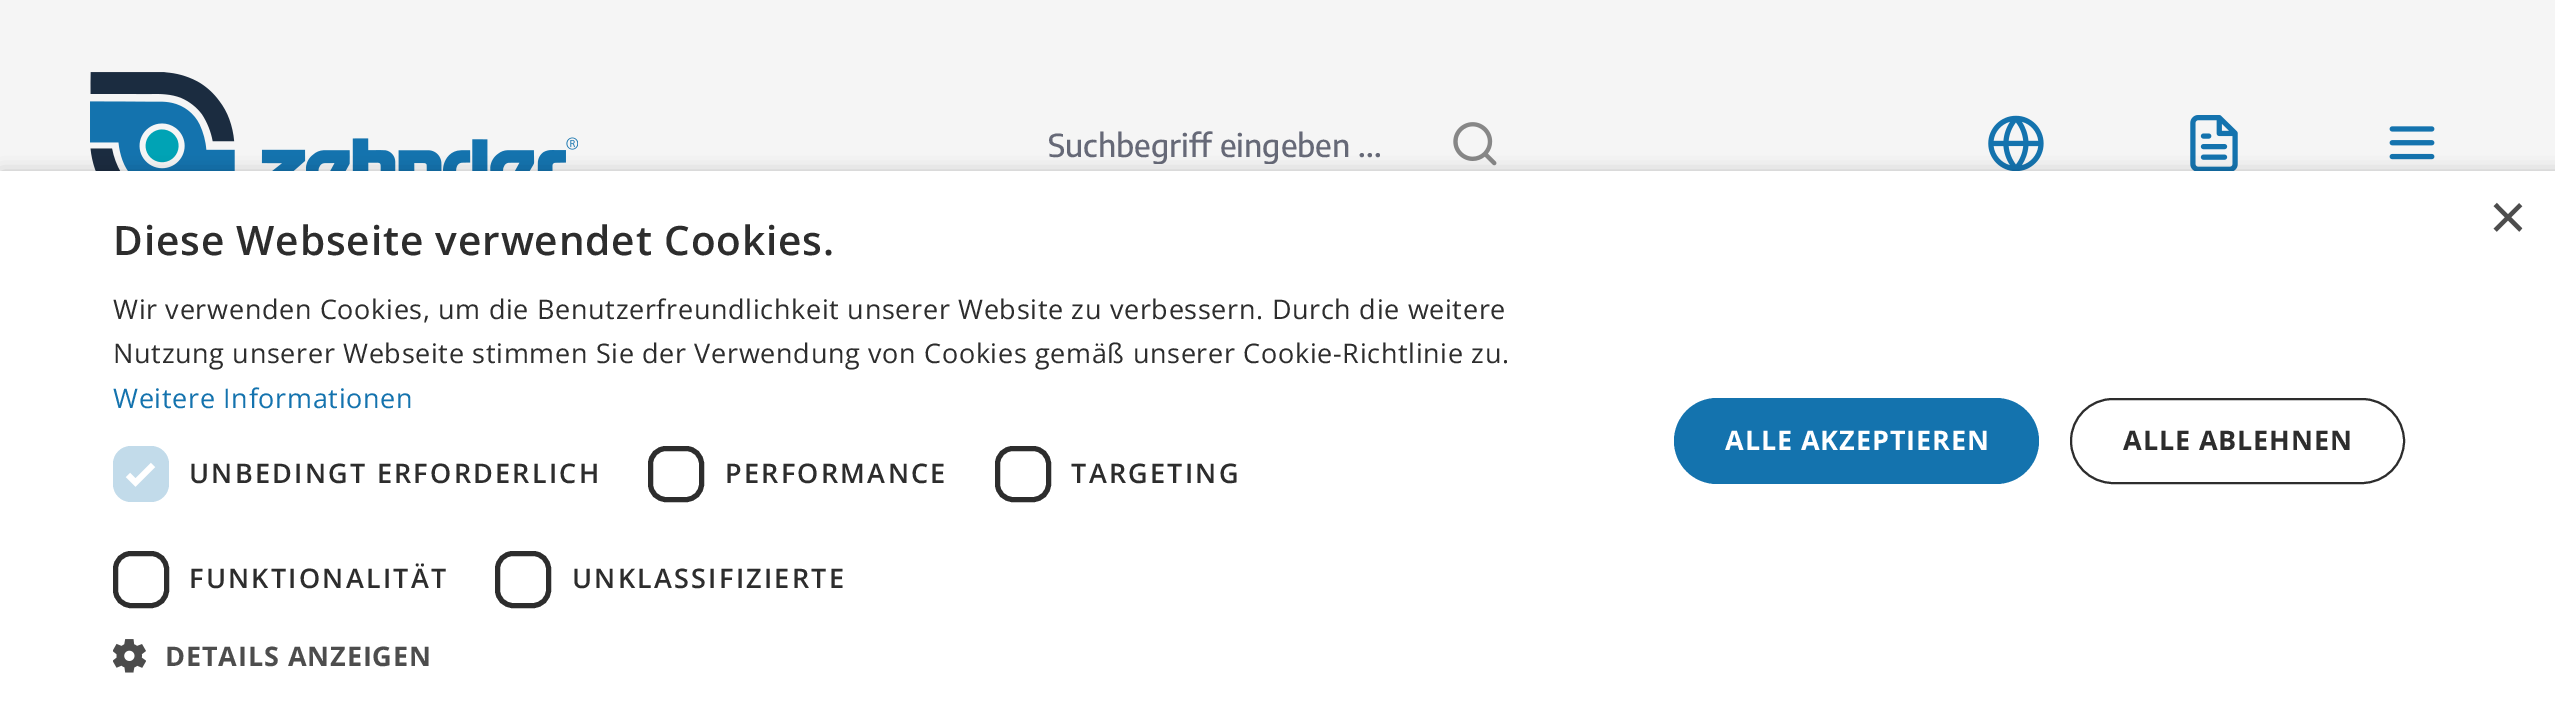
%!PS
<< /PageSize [2555 710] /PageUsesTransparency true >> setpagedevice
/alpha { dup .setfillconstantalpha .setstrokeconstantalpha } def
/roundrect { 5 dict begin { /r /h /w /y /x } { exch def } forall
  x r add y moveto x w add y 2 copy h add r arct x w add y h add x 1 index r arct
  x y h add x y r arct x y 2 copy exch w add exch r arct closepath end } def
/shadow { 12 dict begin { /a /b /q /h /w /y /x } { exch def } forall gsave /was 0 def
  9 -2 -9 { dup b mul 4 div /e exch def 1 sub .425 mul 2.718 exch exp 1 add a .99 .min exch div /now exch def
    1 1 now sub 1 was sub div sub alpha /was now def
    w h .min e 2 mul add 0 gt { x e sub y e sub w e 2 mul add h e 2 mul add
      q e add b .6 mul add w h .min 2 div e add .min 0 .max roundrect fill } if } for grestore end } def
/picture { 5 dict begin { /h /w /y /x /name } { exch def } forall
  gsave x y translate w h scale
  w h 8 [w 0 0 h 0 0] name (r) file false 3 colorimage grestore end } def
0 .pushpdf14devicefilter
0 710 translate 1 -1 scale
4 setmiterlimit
0.961 setgray
0 0 2555 710 rectfill
(img1.rgb) 90 72 488 99 picture
gsave
1049 126 337 38 rectclip
/EncodeSans-Medium [31.5 0 0 -31.5 0 0] selectfont
0.4 0.412 0.467 setrgbcolor
1048 157 moveto (Suchbegriff eingeben ...) show
grestore
(img2.rgb) 1453 122 44 44 picture
(img3.rgb) 1988 115 56 56 picture
(img4.rgb) 2190 115 48 56 picture
(img5.rgb) 2389 126 46 34 picture
0 setgray
2 176 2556 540 0 9 0.35 shadow
1 setgray
0 171 2555 539 rectfill
/LiberationSans-Regular [65 0 0 -65 0 0] selectfont
0.302 setgray
2489 239 moveto (×) show
/OpenSans-SemiBold [40.5 0 0 -40.5 0 0] selectfont
0.176 setgray
113 255 moveto 0.9 0 (Diese Webseite verwendet Cookies.) ashow
/OpenSans-Regular [27 0 0 -27 0 0] selectfont
113 319 moveto 0.67 0 (Wir verwenden Cookies, um die Benutzerfreundlichkeit unserer Website zu verbessern. Durch die weitere) ashow
113 363 moveto 0.67 0 (Nutzung unserer Webseite stimmen Sie der Verwendung von Cookies gemäß unserer Cookie-Richtlinie zu.) ashow
0.078 0.451 0.682 setrgbcolor
113 408 moveto 0.67 0 (Weitere Informationen) ashow
0.761 0.859 0.918 setrgbcolor
113 446 56 56 18 roundrect fill
1 setgray
5.9 setlinewidth
newpath 128 475 moveto 135.5 482.5 lineto 153 465 lineto stroke
/OpenSans-SemiBold [27 0 0 -27 0 0] selectfont
0.176 setgray
189 483 moveto 2.25 0 (UNBEDINGT ERFORDERLICH) ashow
5 setlinewidth
650.5 448.5 51 51 15.5 roundrect stroke
725 483 moveto 2.25 0 (PERFORMANCE) ashow
997.5 448.5 51 51 15.5 roundrect stroke
1071 483 moveto 2.25 0 (TARGETING) ashow
115.5 553.5 51 52 15.5 roundrect stroke
189 588 moveto 2.25 0 (FUNKTIONALITÄT) ashow
497.5 553.5 51 52 15.5 roundrect stroke
572 588 moveto 2.25 0 (UNKLASSIFIZIERTE) ashow
(img6.rgb) 113 639 33 34 picture
/OpenSans-Bold [27 0 0 -27 0 0] selectfont
0.302 setgray
165 666 moveto 0.9 0 (DETAILS ANZEIGEN) ashow
0.078 0.451 0.682 setrgbcolor
1674 398 365 86 43 roundrect fill
1 setgray
1725 450 moveto 0.9 0 (ALLE AKZEPTIEREN) ashow
0.176 setgray
2 setlinewidth
2071 399 333 84 42 roundrect stroke
2123 450 moveto 0.9 0 (ALLE ABLEHNEN) ashow
.poppdf14devicefilter showpage
